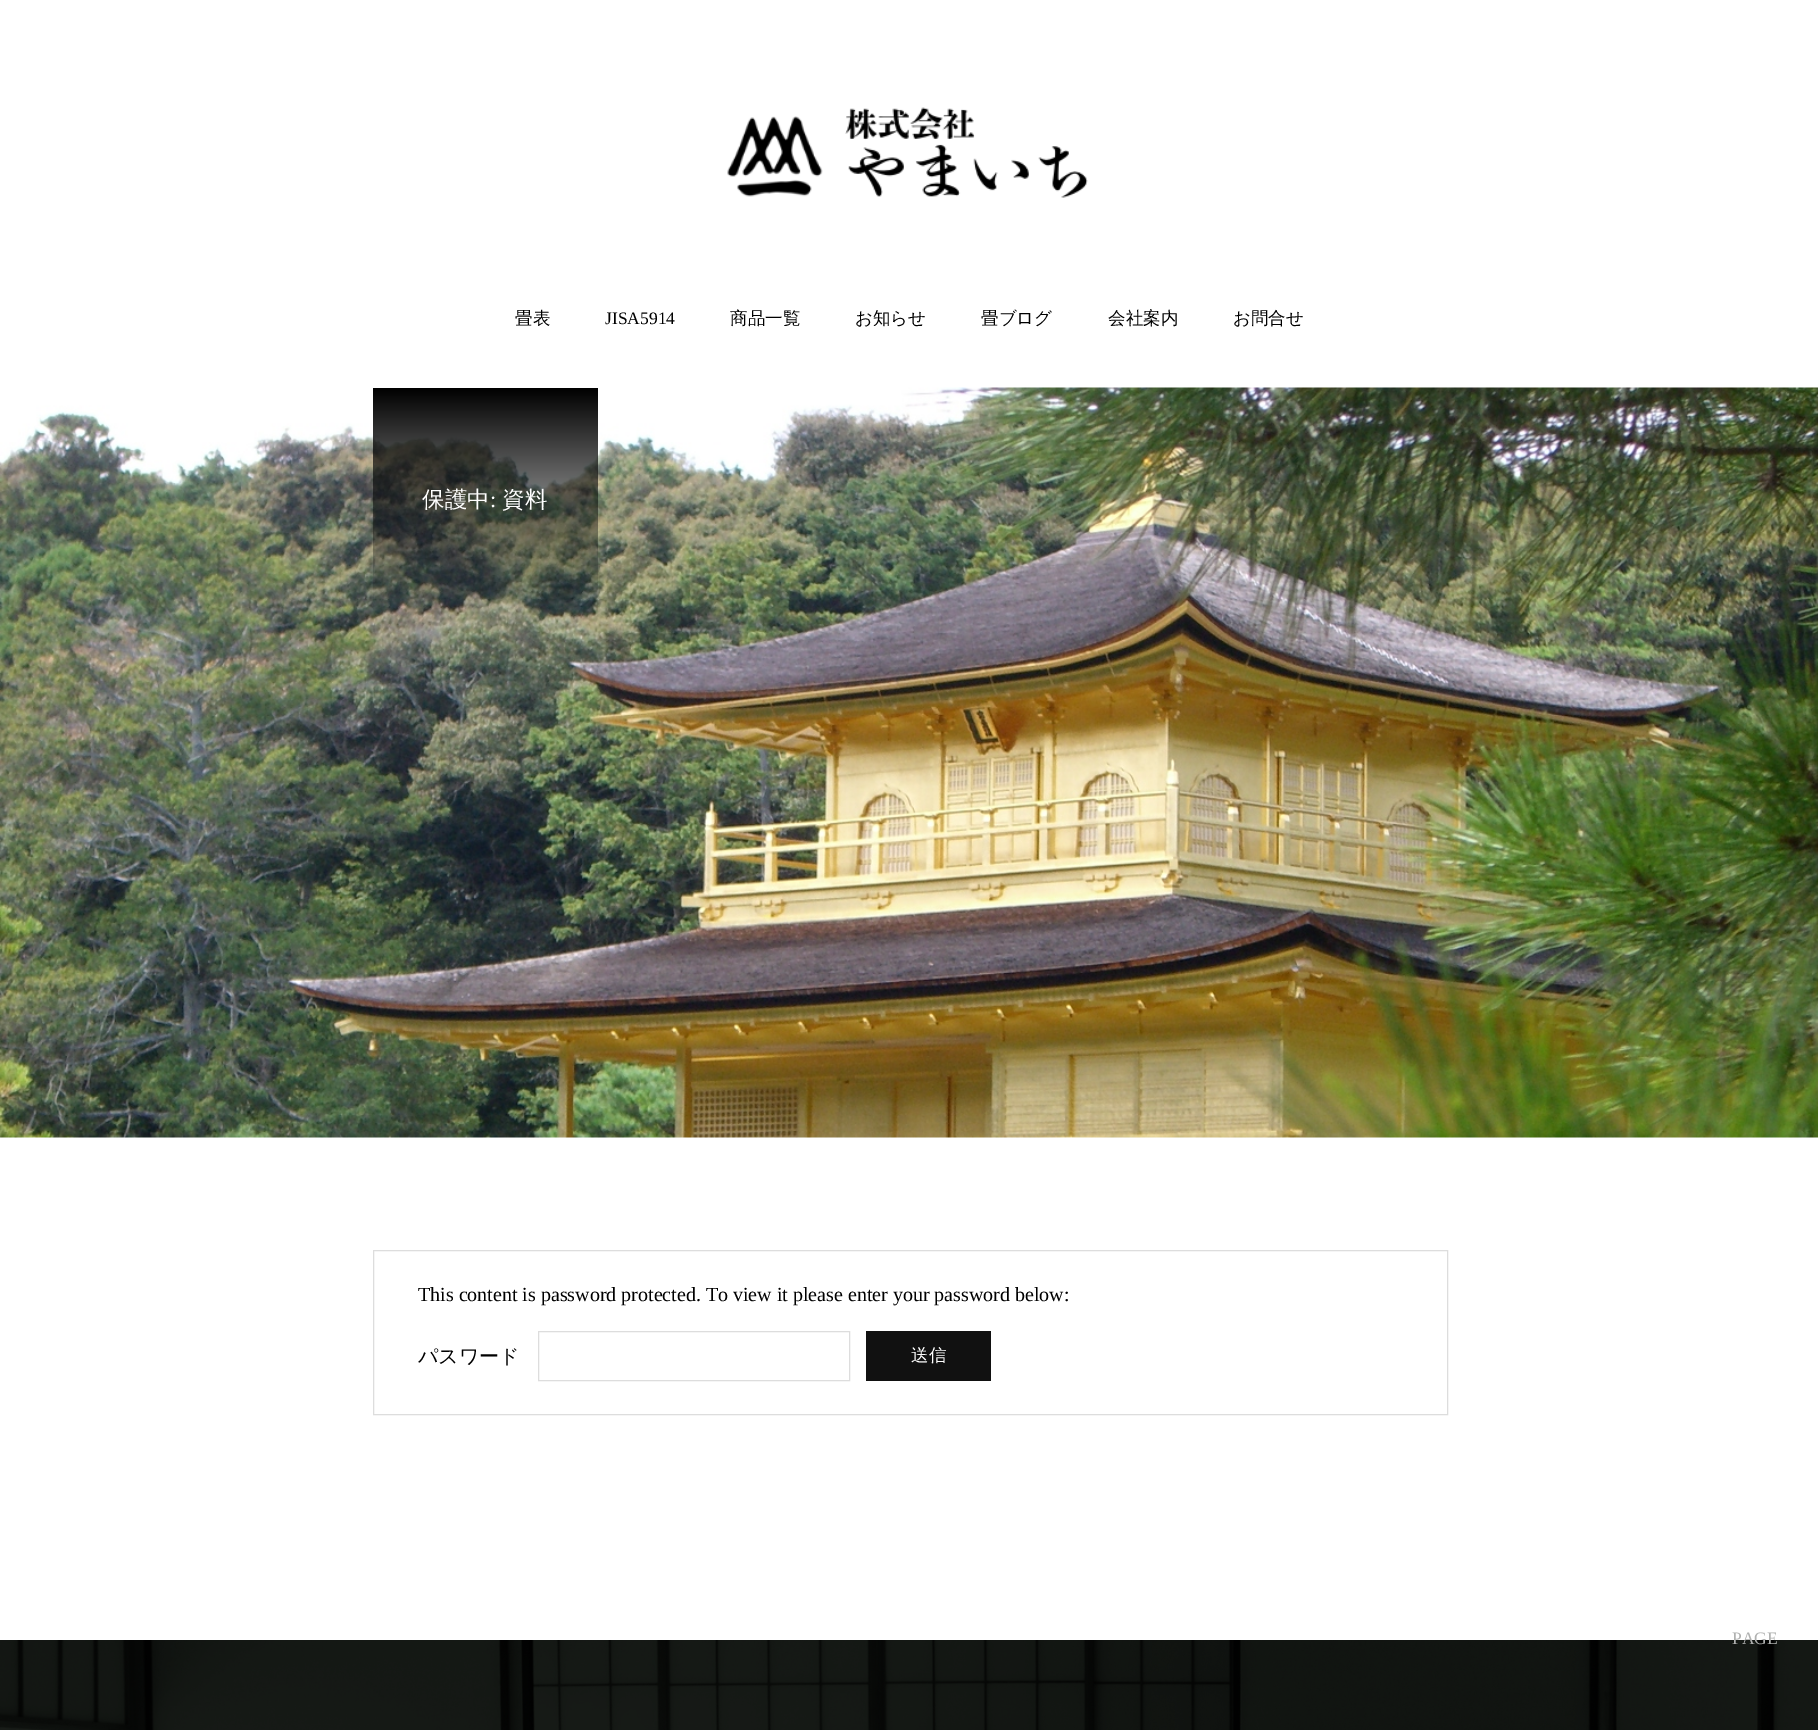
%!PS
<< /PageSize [1818 1730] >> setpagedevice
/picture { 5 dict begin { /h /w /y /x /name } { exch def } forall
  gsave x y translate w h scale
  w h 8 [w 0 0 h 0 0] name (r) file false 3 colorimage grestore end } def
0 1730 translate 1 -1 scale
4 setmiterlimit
1 setgray
0 0 1818 1730 rectfill
(img1.rgb) 727 107 361 91 picture
/WenQuanYiZenHei-Medium [17.5 0 0 -17.5 0 0] selectfont
0 setgray
515 324 moveto (畳表) show
/LiberationSerif-Regular [17.5 0 0 -17.5 0 0] selectfont
605 324 moveto (JISA5914) show
/WenQuanYiZenHei-Medium [17.5 0 0 -17.5 0 0] selectfont
730 324 moveto (商品一覧) show
855 324 moveto (お知らせ) show
981 324 moveto (畳ブログ) show
1108 324 moveto (会社案内) show
1233 324 moveto (お問合せ) show
(img2.rgb) 0 387 1818 751 picture
/WenQuanYiZenHei-Medium [22.5 0 0 -22.5 0 0] selectfont
1 setgray
422 507 moveto (保護中) show
/LiberationSerif-Regular [22.5 0 0 -22.5 0 0] selectfont
490 507 moveto (:) show
/WenQuanYiZenHei-Medium [22.5 0 0 -22.5 0 0] selectfont
502 507 moveto (資料) show
0.867 setgray
373.5 1250.5 1074 164 rectstroke
/LiberationSerif-Regular [20 0 0 -20 0 0] selectfont
0 setgray
418 1301 moveto (This content is password protected. To view it please enter your password below:) show
/WenQuanYiZenHei-Medium [20 0 0 -20 0 0] selectfont
418 1363 moveto (パスワード) show
0.867 setgray
538.5 1331.5 311 49 rectstroke
0.067 setgray
866 1331 125 50 rectfill
/WenQuanYiZenHei-Medium [17.5 0 0 -17.5 0 0] selectfont
1 setgray
911 1361 moveto (送信) show
(img3.rgb) 0 1640 1818 90 picture
/LiberationSerif-Regular [17.5 0 0 -17.5 0 0] selectfont
0.69 0.694 0.69 setrgbcolor
1732 1644 moveto (PAGE) show
showpage
